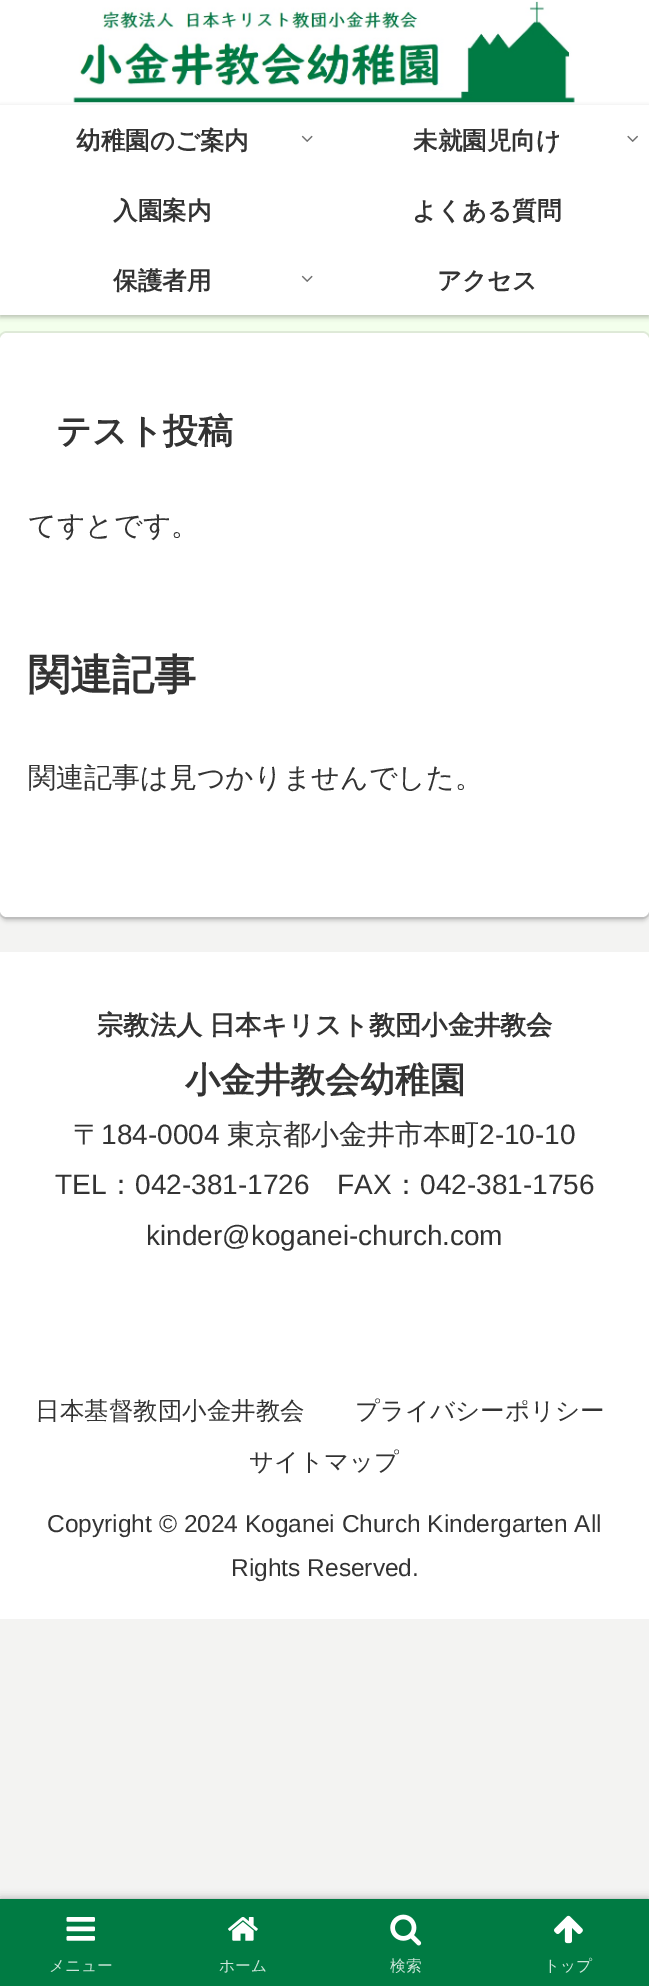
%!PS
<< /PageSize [649 1986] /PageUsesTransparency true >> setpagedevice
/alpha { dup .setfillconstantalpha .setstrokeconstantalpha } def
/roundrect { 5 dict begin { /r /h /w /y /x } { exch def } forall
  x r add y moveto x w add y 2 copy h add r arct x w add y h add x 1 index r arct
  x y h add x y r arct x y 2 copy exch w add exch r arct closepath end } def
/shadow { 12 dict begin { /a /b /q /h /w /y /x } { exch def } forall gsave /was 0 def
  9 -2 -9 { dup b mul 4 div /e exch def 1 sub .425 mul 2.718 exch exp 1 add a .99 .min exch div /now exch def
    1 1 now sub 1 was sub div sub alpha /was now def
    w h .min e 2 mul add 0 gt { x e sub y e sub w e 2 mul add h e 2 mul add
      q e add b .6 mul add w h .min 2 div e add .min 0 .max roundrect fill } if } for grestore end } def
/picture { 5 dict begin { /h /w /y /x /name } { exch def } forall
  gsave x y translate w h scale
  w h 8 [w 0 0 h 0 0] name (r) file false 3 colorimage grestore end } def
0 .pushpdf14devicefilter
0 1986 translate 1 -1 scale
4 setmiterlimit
0.953 0.953 0.949 setrgbcolor
0 0 649 1986 rectfill
(img1.rgb) 0 315 649 25 picture
1 setgray
0 0 649 315 rectfill
(img2.rgb) 73 1 502 102 picture
gsave
newpath 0 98 moveto 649 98 lineto 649 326 lineto 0 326 lineto closepath 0 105 moveto 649 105 lineto 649 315 lineto 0 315 lineto closepath eoclip newpath
0 setgray
0 107 649 210 0 2.5 0.25 shadow
grestore
/WenQuanYiZenHei-Bold [24.5 0 0 -24.5 0 0] selectfont
0.2 setgray
76 149 moveto (幼稚園のご案内) show
(img3.rgb) 301 135 12 7 picture
413 149 moveto (未就園児向け) show
(img4.rgb) 627 135 11 7 picture
113 219 moveto (入園案内) show
412 219 moveto (よくある質問) show
113 289 moveto (保護者用) show
(img3.rgb) 301 275 12 7 picture
437 289 moveto (アクセス) show
0.08 alpha
0 setgray
2 setlinewidth
-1 332 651 586 8 roundrect stroke
1 alpha
0 336 649 585 7 2 0.16 shadow
1 setgray
0 333 649 584 7 roundrect fill
/WenQuanYiZenHei-Bold [35 0 0 -35 0 0] selectfont
0.2 setgray
56 443 moveto (テスト投稿) show
/WenQuanYiZenHei-Medium [28 0 0 -28 0 0] selectfont
28 535 moveto (てすとです。) show
/WenQuanYiZenHei-Bold [42 0 0 -42 0 0] selectfont
28 689 moveto (関連記事) show
/WenQuanYiZenHei-Medium [28 0 0 -28 0 0] selectfont
28 787 moveto (関連記事は見つかりませんでした。) show
1 setgray
0 952 649 667 rectfill
/WenQuanYiZenHei-Bold [26.25 0 0 -26.25 0 0] selectfont
0.2 setgray
97 1034 moveto -1 0 32 (宗教法人 日本キリスト教団小金井教会) widthshow
/WenQuanYiZenHei-Bold [35 0 0 -35 0 0] selectfont
185 1092 moveto (小金井教会幼稚園) show
/WenQuanYiZenHei-Medium [28 0 0 -28 0 0] selectfont
73 1144 moveto (〒) show
/LiberationSans-Regular [28 0 0 -28 0 0] selectfont
101 1144 moveto (184-0004) show
/WenQuanYiZenHei-Medium [28 0 0 -28 0 0] selectfont
227 1144 moveto (東京都小金井市本町) show
/LiberationSans-Regular [28 0 0 -28 0 0] selectfont
479 1144 moveto (2-10-10) show
55 1194 moveto (TEL) show
/WenQuanYiZenHei-Medium [28 0 0 -28 0 0] selectfont
107 1194 moveto (：) show
/LiberationSans-Regular [28 0 0 -28 0 0] selectfont
135 1194 moveto (042-381-1726) show
337 1194 moveto (FAX) show
/WenQuanYiZenHei-Medium [28 0 0 -28 0 0] selectfont
392 1194 moveto (：) show
/LiberationSans-Regular [28 0 0 -28 0 0] selectfont
420 1194 moveto (042-381-1756) show
146 1245 moveto (kinder@koganei-church.com) show
/WenQuanYiZenHei-Medium [24.5 0 0 -24.5 0 0] selectfont
35 1419 moveto (日本基督教団小金井教会) show
355 1419 moveto (プライバシーポリシー) show
249 1470 moveto (サイトマップ) show
/LiberationSans-Regular [24.5 0 0 -24.5 0 0] selectfont
47 1532 moveto (Copyright © 2024 Koganei Church Kindergarten All) show
231 1576 moveto (Rights Reserved.) show
0.663 setgray
0 1899 649 87 0 4.5 1 shadow
0 0.482 0.263 setrgbcolor
0 1899 649 87 rectfill
(img5.rgb) 66 1917 29 24 picture
/WenQuanYiZenHei-Medium [15.75 0 0 -15.75 0 0] selectfont
0.8 0.898 0.851 setrgbcolor
49 1971 moveto (メニュー) show
(img6.rgb) 228 1917 30 24 picture
219 1971 moveto (ホーム) show
(img7.rgb) 390 1914 32 32 picture
390 1971 moveto (検索) show
(img8.rgb) 554 1915 29 29 picture
544 1971 moveto (トップ) show
.poppdf14devicefilter showpage
